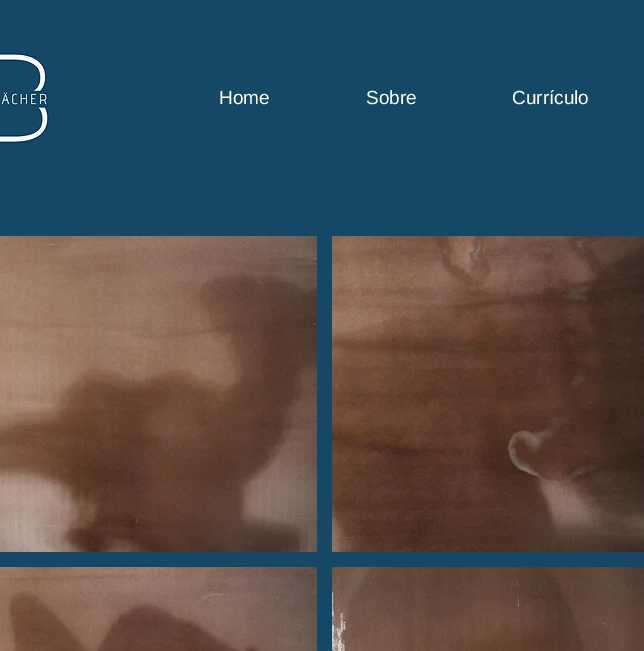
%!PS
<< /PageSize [644 651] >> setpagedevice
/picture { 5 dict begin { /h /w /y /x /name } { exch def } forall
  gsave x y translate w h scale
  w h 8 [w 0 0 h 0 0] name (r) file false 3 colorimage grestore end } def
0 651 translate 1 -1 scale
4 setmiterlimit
0.082 0.278 0.404 setrgbcolor
0 0 644 651 rectfill
(img1.rgb) 0 53 49 90 picture
/LiberationSans-Regular [19 0 0 -19 0 0] selectfont
1 setgray
219 104 moveto (Home) show
366 104 moveto (Sobre) show
512 104 moveto (Currículo) show
(img2.rgb) 0 236 317 316 picture
(img3.rgb) 332 236 312 316 picture
(img4.rgb) 0 567 317 84 picture
(img5.rgb) 332 567 312 84 picture
showpage
